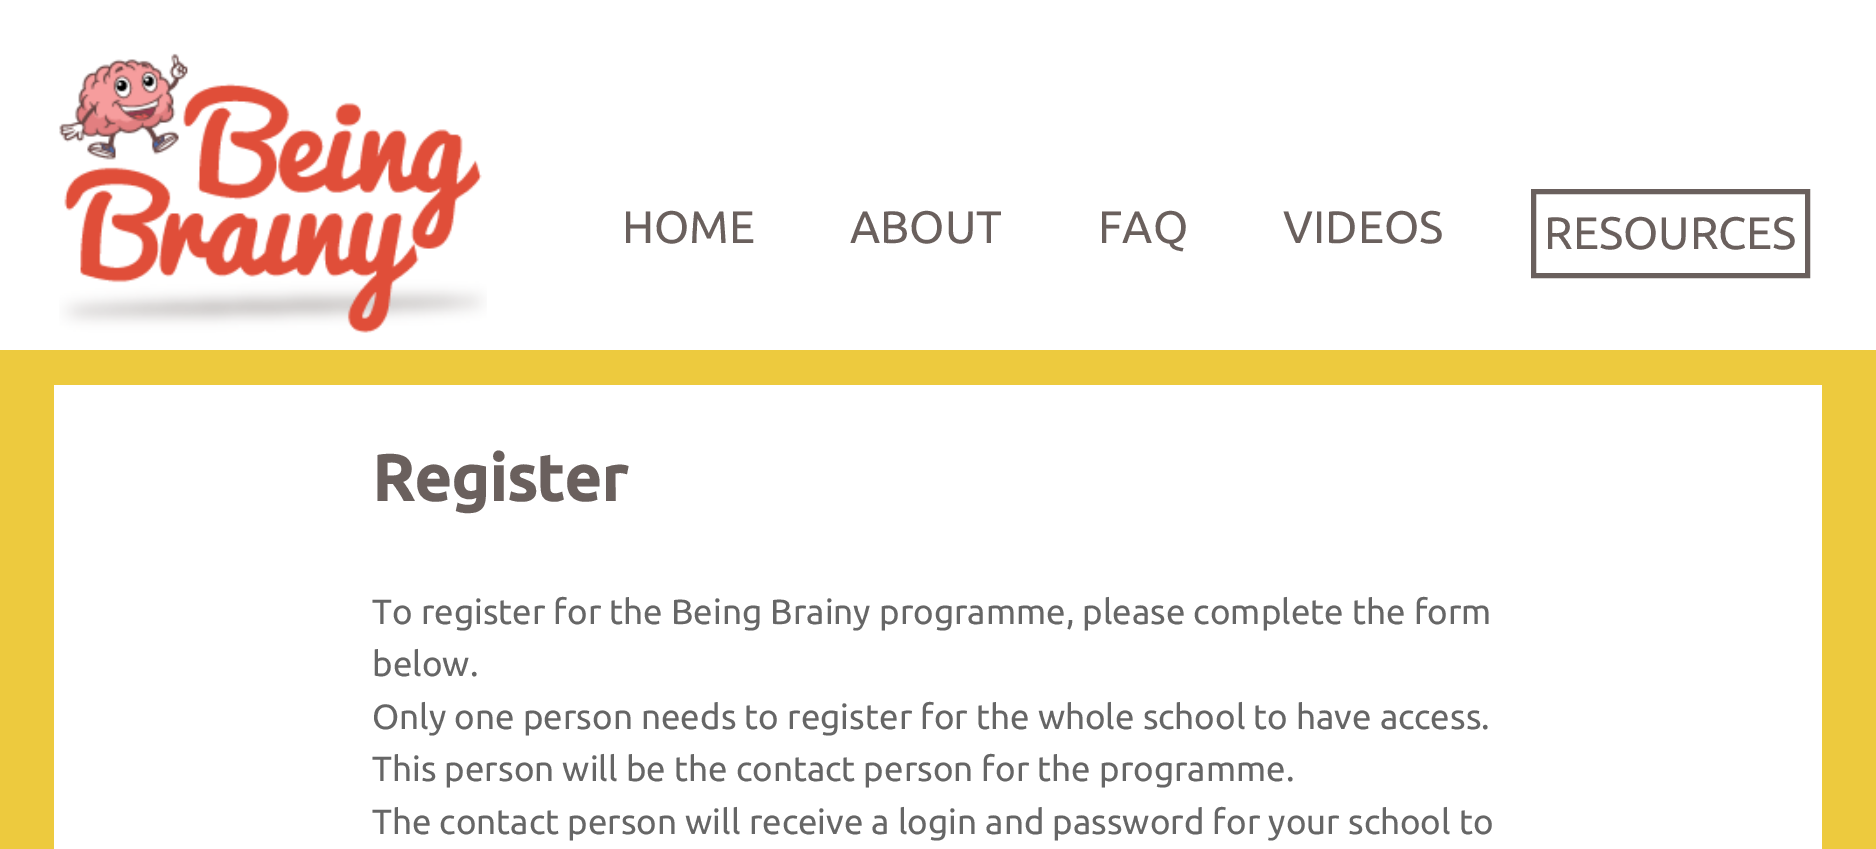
%!PS
<< /PageSize [1876 849] >> setpagedevice
/picture { 5 dict begin { /h /w /y /x /name } { exch def } forall
  gsave x y translate w h scale
  w h 8 [w 0 0 h 0 0] name (r) file false 3 colorimage grestore end } def
0 849 translate 1 -1 scale
4 setmiterlimit
0.929 0.792 0.243 setrgbcolor
0 0 1876 849 rectfill
1 setgray
0 0 1876 350 rectfill
(img1.rgb) 59 53 428 280 picture
/Ubuntu-Regular [45.5 0 0 -45.5 0 0] selectfont
0.416 0.376 0.365 setrgbcolor
622 243 moveto (HOME) show
850 243 moveto (ABOUT) show
1098 243 moveto (FAQ) show
1283 243 moveto (VIDEOS) show
5 setlinewidth
1533.5 191.5 274 84 rectstroke
1544 249 moveto (RESOURCES) show
1 setgray
54 385 1768 464 rectfill
/Ubuntu-Bold [65 0 0 -65 0 0] selectfont
0.416 0.376 0.365 setrgbcolor
372 501 moveto (Register) show
/Ubuntu-Regular [35 0 0 -35 0 0] selectfont
0.4 setgray
372 624 moveto (To register for the Being Brainy programme, please complete the form) show
372 676 moveto (below.) show
372 729 moveto (Only one person needs to register for the whole school to have access.) show
372 781 moveto (This person will be the contact person for the programme.) show
372 834 moveto (The contact person will receive a login and password for your school to) show
showpage
